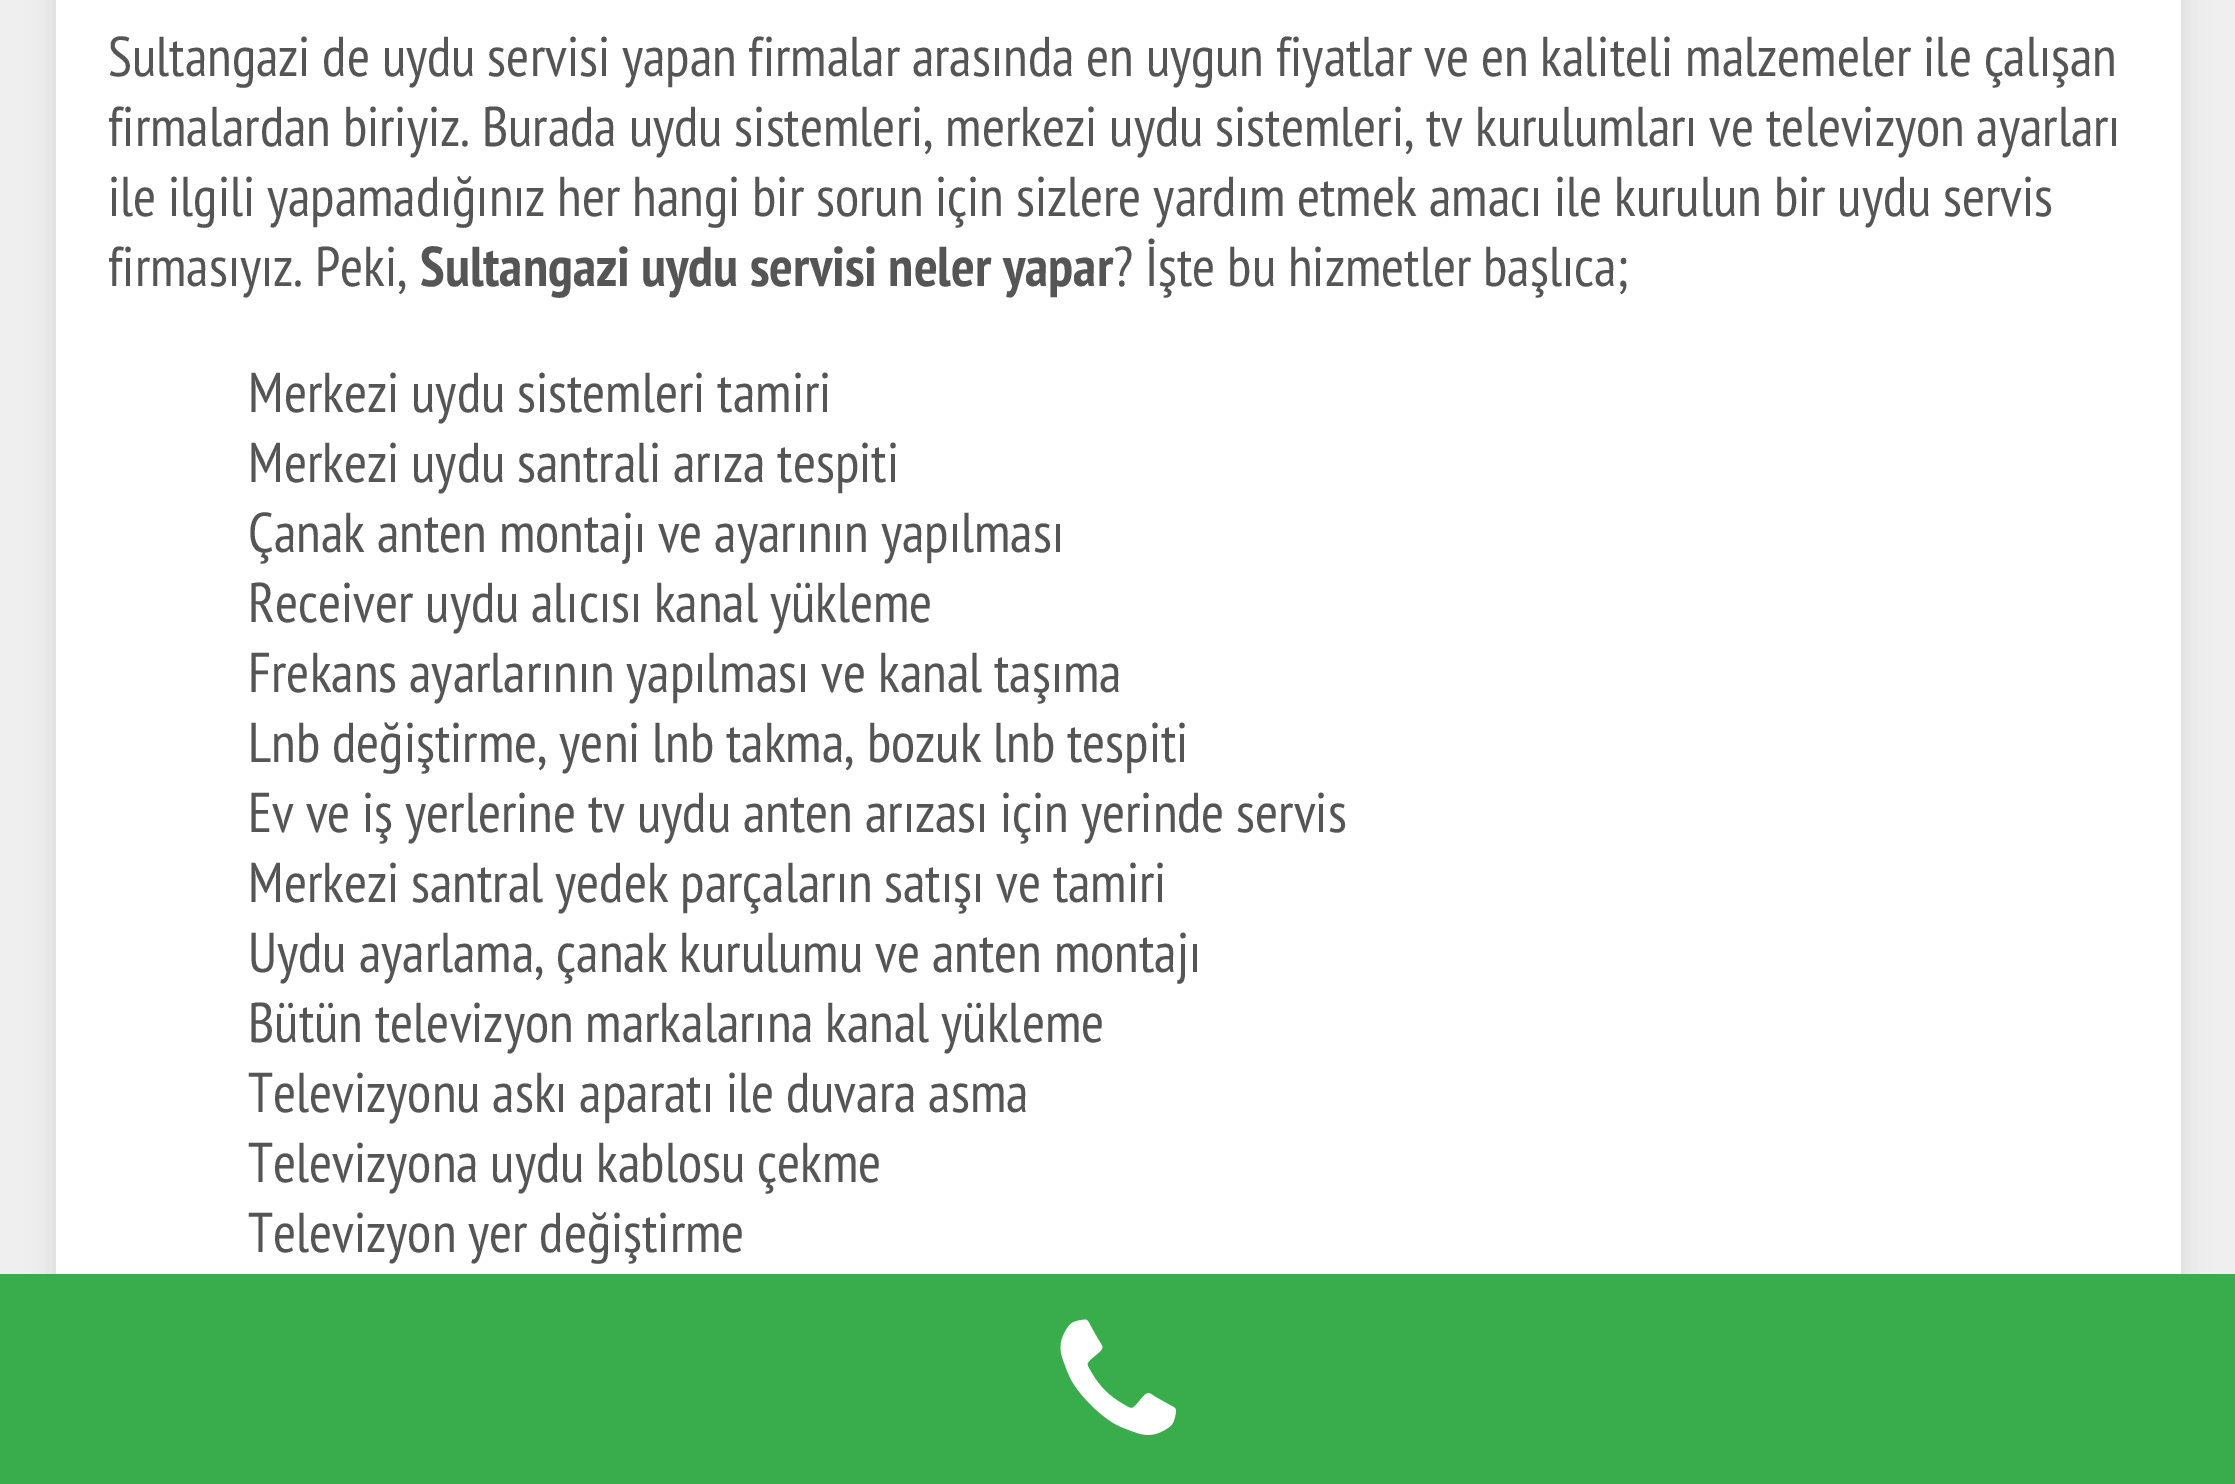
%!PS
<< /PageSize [2235 1484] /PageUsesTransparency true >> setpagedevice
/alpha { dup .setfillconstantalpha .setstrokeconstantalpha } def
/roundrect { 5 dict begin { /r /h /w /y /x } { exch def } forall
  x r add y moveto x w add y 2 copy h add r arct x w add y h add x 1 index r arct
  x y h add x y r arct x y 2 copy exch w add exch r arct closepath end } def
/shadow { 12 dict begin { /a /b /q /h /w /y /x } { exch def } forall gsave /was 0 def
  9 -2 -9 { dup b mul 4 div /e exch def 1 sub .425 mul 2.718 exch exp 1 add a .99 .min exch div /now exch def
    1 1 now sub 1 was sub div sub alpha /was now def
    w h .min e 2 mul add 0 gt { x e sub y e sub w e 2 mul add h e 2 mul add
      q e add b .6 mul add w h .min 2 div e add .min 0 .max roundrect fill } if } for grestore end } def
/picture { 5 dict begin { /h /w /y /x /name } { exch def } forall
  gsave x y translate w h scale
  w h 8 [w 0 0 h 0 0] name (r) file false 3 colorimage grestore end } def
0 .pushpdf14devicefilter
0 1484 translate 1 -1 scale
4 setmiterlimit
0.937 setgray
0 0 2235 1484 rectfill
0 setgray
56 -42 2125 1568 0 14 0.1 shadow
1 setgray
56 0 2125 1274 rectfill
/PTSansNarrow-Regular [56 0 0 -56 0 0] selectfont
0.333 setgray
108 76 moveto (Sultangazi de uydu servisi yapan firmalar arasında en uygun fiyatlar ve en kaliteli malzemeler ile çalışan) show
108 146 moveto (firmalardan biriyiz. Burada uydu sistemleri, merkezi uydu sistemleri, tv kurulumları ve televizyon ayarları) show
108 216 moveto (ile ilgili yapamadığınız her hangi bir sorun için sizlere yardım etmek amacı ile kurulun bir uydu servis) show
108 286 moveto (firmasıyız. Peki,) show
/PTSansNarrow-Bold [56 0 0 -56 0 0] selectfont
420 286 moveto (Sultangazi uydu servisi neler yapar) show
/PTSansNarrow-Regular [56 0 0 -56 0 0] selectfont
1113 286 moveto (? İşte bu hizmetler başlıca;) show
248 412 moveto (Merkezi uydu sistemleri tamiri) show
248 482 moveto (Merkezi uydu santrali arıza tespiti) show
248 552 moveto (Çanak anten montajı ve ayarının yapılması) show
248 622 moveto (Receiver uydu alıcısı kanal yükleme) show
248 692 moveto (Frekans ayarlarının yapılması ve kanal taşıma) show
248 762 moveto (Lnb değiştirme, yeni lnb takma, bozuk lnb tespiti) show
248 832 moveto (Ev ve iş yerlerine tv uydu anten arızası için yerinde servis) show
248 902 moveto (Merkezi santral yedek parçaların satışı ve tamiri) show
248 972 moveto (Uydu ayarlama, çanak kurulumu ve anten montajı) show
248 1042 moveto (Bütün televizyon markalarına kanal yükleme) show
248 1112 moveto (Televizyonu askı aparatı ile duvara asma) show
248 1182 moveto (Televizyona uydu kablosu çekme) show
248 1252 moveto (Televizyon yer değiştirme) show
0.224 0.675 0.298 setrgbcolor
0 1274 2235 210 rectfill
(img1.rgb) 1060 1319 116 116 picture
.poppdf14devicefilter showpage
